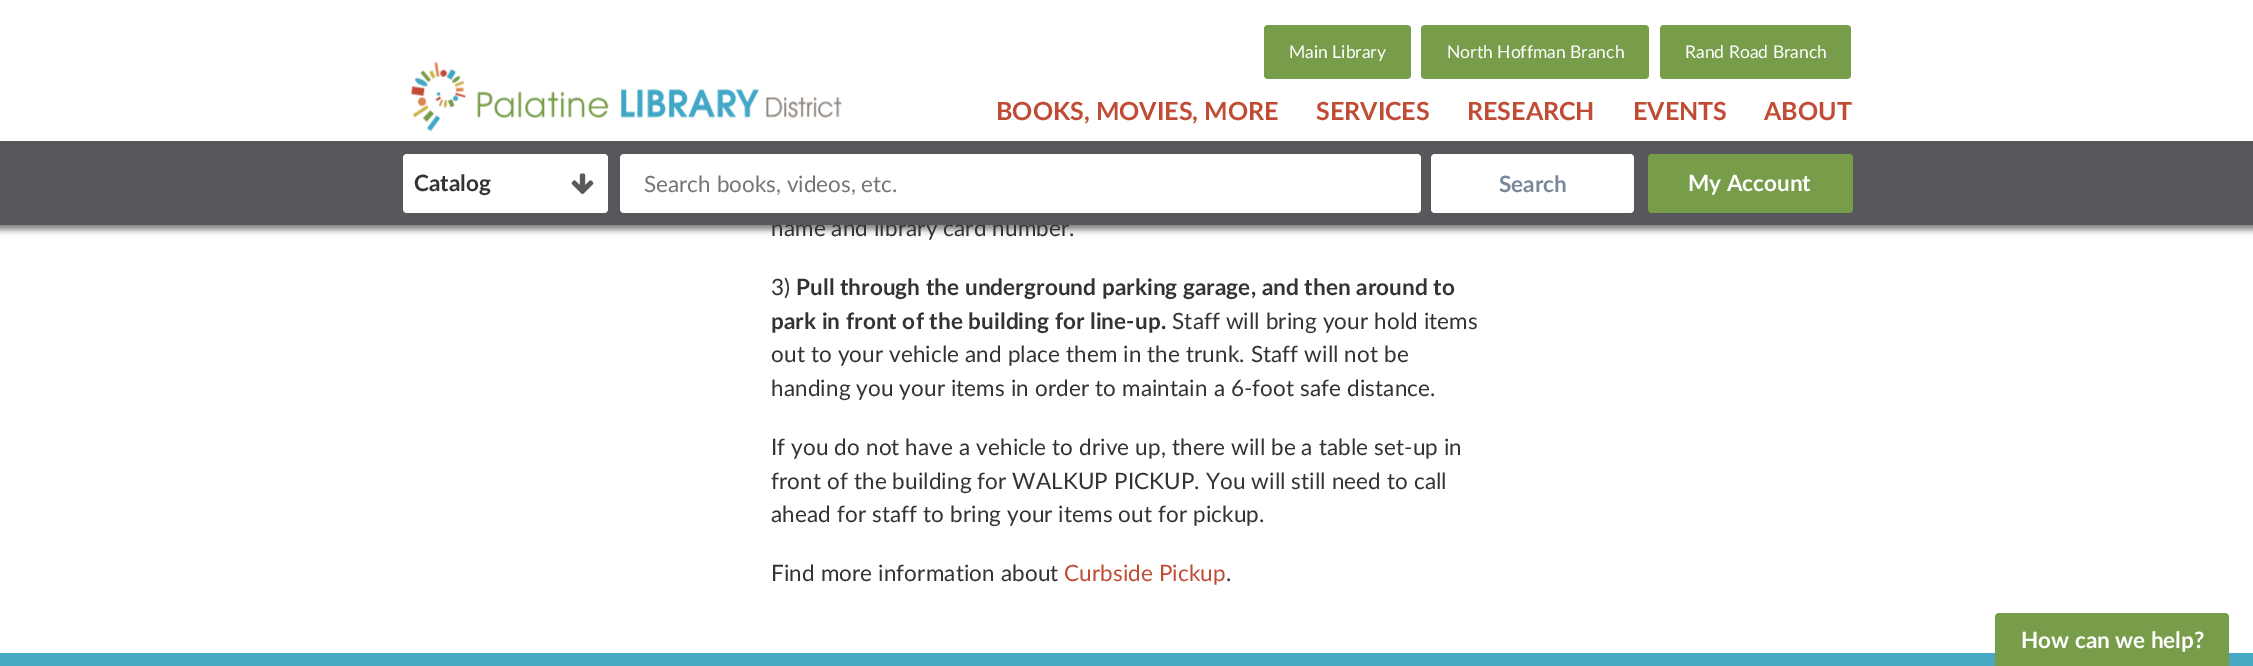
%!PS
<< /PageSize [2253 666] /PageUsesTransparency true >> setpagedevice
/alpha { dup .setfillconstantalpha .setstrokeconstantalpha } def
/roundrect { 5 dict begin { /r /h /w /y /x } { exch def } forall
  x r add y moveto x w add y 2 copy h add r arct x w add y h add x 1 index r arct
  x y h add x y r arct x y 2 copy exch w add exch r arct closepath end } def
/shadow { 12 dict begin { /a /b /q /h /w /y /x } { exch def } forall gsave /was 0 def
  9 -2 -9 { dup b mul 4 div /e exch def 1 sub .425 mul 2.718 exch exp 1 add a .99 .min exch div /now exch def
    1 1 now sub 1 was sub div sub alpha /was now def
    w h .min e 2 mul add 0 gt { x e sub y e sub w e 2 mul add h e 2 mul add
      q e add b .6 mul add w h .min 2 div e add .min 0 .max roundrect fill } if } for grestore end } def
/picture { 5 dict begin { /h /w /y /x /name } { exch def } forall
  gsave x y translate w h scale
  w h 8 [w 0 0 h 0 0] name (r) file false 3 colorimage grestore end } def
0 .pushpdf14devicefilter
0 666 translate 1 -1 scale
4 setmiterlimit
1 setgray
0 0 2253 666 rectfill
0.2 setgray
-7 -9 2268 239 0 3 0.6 shadow
1 setgray
0 0 2253 141 rectfill
(img1.rgb) 411 62 432 70 picture
0.471 0.616 0.29 setrgbcolor
1264 25 147 54 4 roundrect fill
/Lato-Regular [17.5 0 0 -17.5 0 0] selectfont
1 setgray
1289 58 moveto (Main Library) show
0.471 0.616 0.29 setrgbcolor
1421 25 228 54 4 roundrect fill
1 setgray
1447 58 moveto (North Hoffman Branch) show
0.471 0.616 0.29 setrgbcolor
1660 25 191 54 4 roundrect fill
1 setgray
1685 58 moveto (Rand Road Branch) show
/Lato-Bold [25 0 0 -25 0 0] selectfont
0.753 0.298 0.212 setrgbcolor
996 120 moveto (BOOKS, MOVIES, MORE) show
1316 120 moveto (SERVICES) show
1467 120 moveto (RESEARCH) show
1633 120 moveto (EVENTS) show
1764 120 moveto (ABOUT) show
/Lato-Regular [22.5 0 0 -22.5 0 0] selectfont
0.2 setgray
771 236 moveto 0.12 0 (name and library card number.) ashow
0.341 0.345 0.357 setrgbcolor
0 141 2253 84 rectfill
1 setgray
403 154 205 59 4 roundrect fill
(img2.rgb) 571 173 23 21 picture
/Lato-Bold [22.5 0 0 -22.5 0 0] selectfont
0.2 setgray
414 191 moveto (Catalog) show
1 setgray
620 154 801 59 4 roundrect fill
/Lato-Regular [22.5 0 0 -22.5 0 0] selectfont
0.459 setgray
644 192 moveto (Search books, videos, etc.) show
1 setgray
1431 154 203 59 4 roundrect fill
/Lato-Bold [22.5 0 0 -22.5 0 0] selectfont
0.467 0.533 0.596 setrgbcolor
1499 192 moveto (Search) show
0.471 0.616 0.29 setrgbcolor
1648 154 205 59 4 roundrect fill
1 setgray
1688 191 moveto (My Account) show
/Lato-Regular [22.5 0 0 -22.5 0 0] selectfont
0.2 setgray
771 295 moveto 0.12 0 (3\)) ashow
/Lato-Bold [22.5 0 0 -22.5 0 0] selectfont
796 295 moveto 0.12 0 (Pull through the underground parking garage, and then around to) ashow
771 329 moveto 0.12 0 (park in front of the building for line-up.) ashow
/Lato-Regular [22.5 0 0 -22.5 0 0] selectfont
1172 329 moveto 0.12 0 (Staff will bring your hold items) ashow
771 362 moveto 0.12 0 (out to your vehicle and place them in the trunk. Staff will not be) ashow
771 396 moveto 0.12 0 (handing you your items in order to maintain a 6-foot safe distance.) ashow
771 455 moveto 0.12 0 (If you do not have a vehicle to drive up, there will be a table set-up in) ashow
771 489 moveto 0.12 0 (front of the building for WALKUP PICKUP. You will still need to call) ashow
771 522 moveto 0.12 0 (ahead for staff to bring your items out for pickup.) ashow
771 581 moveto 0.12 0 (Find more information about) ashow
0.753 0.298 0.212 setrgbcolor
1064 581 moveto 0.12 0 (Curbside Pickup) ashow
0.2 setgray
1226 581 moveto 0.12 0 (.) ashow
0.282 0.663 0.773 setrgbcolor
0 653 2253 13 rectfill
0.471 0.616 0.29 setrgbcolor
newpath 1999 613 moveto 2225 613 lineto 2227 613 2229 615 2229 617 curveto 2229 666 lineto 1995 666 lineto 1995 617 lineto 1995 615 1997 613 1999 613 curveto closepath fill
/Lato-Bold [22.5 0 0 -22.5 0 0] selectfont
1 setgray
2021 648 moveto (How can we help?) show
.poppdf14devicefilter showpage
